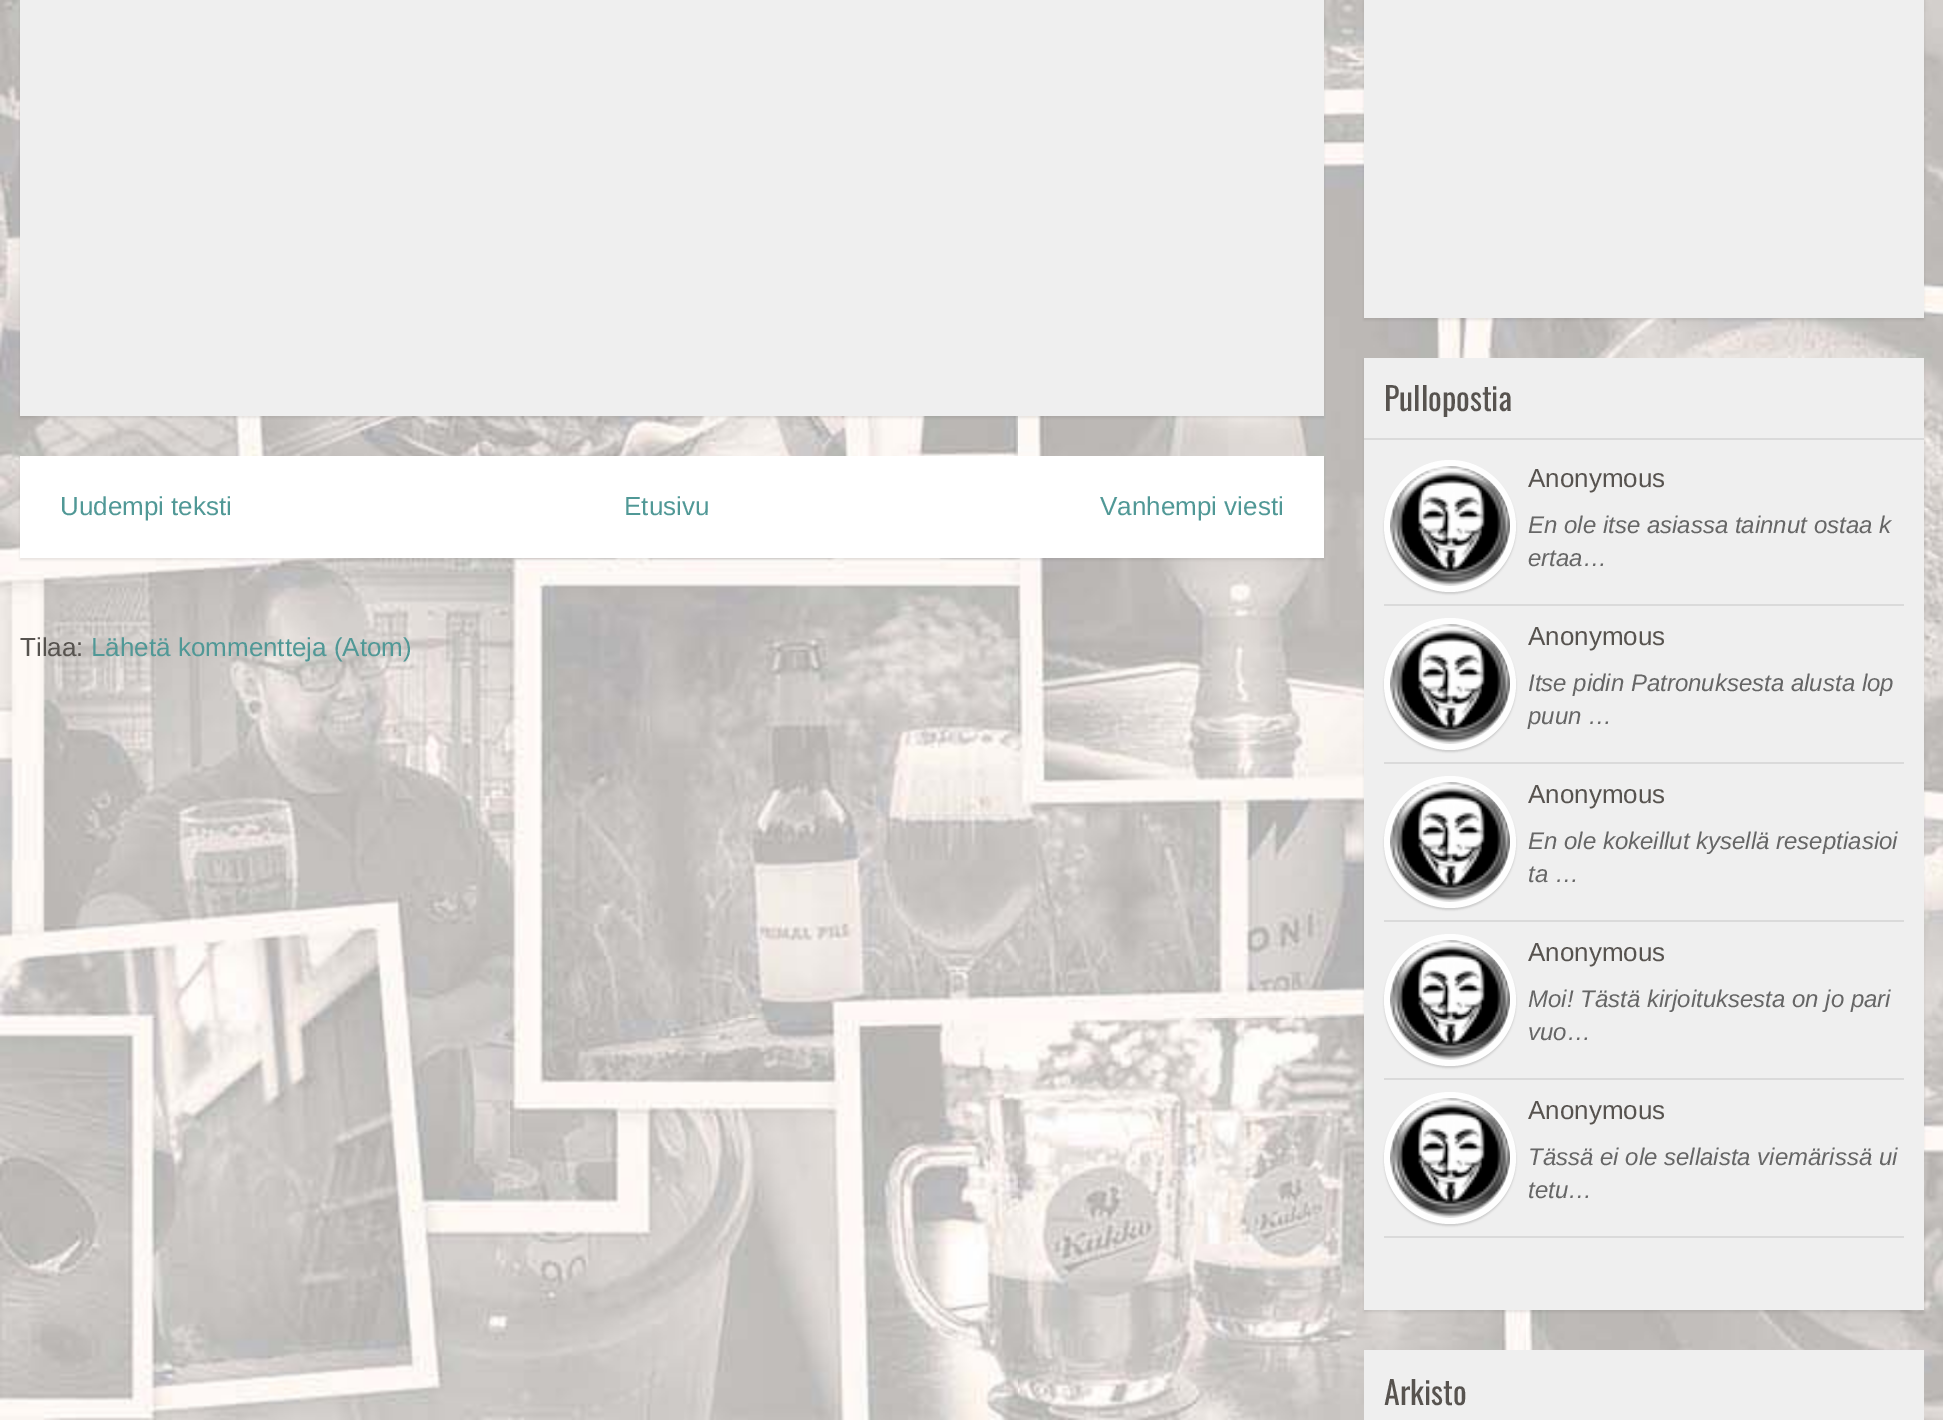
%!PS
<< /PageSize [1943 1420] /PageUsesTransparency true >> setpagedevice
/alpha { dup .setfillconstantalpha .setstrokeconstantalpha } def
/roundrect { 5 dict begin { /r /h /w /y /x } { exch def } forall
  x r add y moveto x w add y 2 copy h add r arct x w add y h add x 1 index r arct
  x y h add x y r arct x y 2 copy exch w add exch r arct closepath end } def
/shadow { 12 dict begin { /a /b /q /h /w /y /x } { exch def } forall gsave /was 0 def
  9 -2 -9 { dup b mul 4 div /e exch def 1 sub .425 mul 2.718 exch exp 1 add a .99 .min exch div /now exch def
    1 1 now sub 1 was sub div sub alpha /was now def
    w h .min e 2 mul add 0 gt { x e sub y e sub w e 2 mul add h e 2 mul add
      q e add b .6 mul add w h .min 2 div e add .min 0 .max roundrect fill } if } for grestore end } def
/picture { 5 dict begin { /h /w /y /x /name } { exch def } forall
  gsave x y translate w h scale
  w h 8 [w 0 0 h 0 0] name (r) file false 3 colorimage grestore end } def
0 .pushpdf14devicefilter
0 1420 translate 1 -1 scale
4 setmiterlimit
1 setgray
0 0 1943 1420 rectfill
(img1.rgb) 0 0 1943 1420 picture
0.133 setgray
20 -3 1304 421 0 1 0.1 shadow
0.937 setgray
20 0 1304 416 rectfill
0.133 setgray
20 458 1304 102 0 1 0.1 shadow
1 setgray
20 456 1304 102 rectfill
/LiberationSans-Regular [26 0 0 -26 0 0] selectfont
0.314 0.596 0.588 setrgbcolor
60 515 moveto (Uudempi teksti) show
624 515 moveto (Etusivu) show
1100 515 moveto (Vanhempi viesti) show
0.341 0.325 0.31 setrgbcolor
20 656 moveto (Tilaa:) show
0.314 0.596 0.588 setrgbcolor
91 656 moveto (Lähetä kommentteja \(Atom\)) show
0.133 setgray
1364 -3 560 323 0 1 0.1 shadow
0.937 setgray
1364 0 560 318 rectfill
0.133 setgray
1364 360 560 952 0 1 0.1 shadow
0.937 setgray
1364 358 560 952 rectfill
0.855 setgray
1364 438 560 2 rectfill
/Oswald-Regular [32 0 0 -32 0 0] selectfont
0.341 0.325 0.31 setrgbcolor
1384 411 moveto (Pullopostia) show
0.855 setgray
1384 604 520 2 rectfill
gsave
newpath 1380 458 moveto 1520 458 lineto 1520 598 lineto 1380 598 lineto closepath 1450 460 moveto 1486.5 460 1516 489.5 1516 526 curveto 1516 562.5 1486.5 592 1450 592 curveto 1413.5 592 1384 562.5 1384 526 curveto 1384 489.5 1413.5 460 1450 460 curveto closepath eoclip newpath
0.8 setgray
1384 462 132 132 66 1 1 shadow
grestore
0.996 setgray
newpath 1450 526 66 0 360 arc closepath fill
(img2.rgb) 1390 466 120 120 picture
/LiberationSans-Regular [26 0 0 -26 0 0] selectfont
0.341 0.325 0.31 setrgbcolor
1528 487 moveto (Anonymous) show
/LiberationSans-Italic [24 0 0 -24 0 0] selectfont
0.4 setgray
1528 533 moveto (En ole itse asiassa tainnut ostaa k) show
1528 566 moveto (ertaa…) show
0.855 setgray
1384 762 520 2 rectfill
gsave
newpath 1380 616 moveto 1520 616 lineto 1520 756 lineto 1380 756 lineto closepath 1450 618 moveto 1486.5 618 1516 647.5 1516 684 curveto 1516 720.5 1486.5 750 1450 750 curveto 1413.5 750 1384 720.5 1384 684 curveto 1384 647.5 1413.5 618 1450 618 curveto closepath eoclip newpath
0.8 setgray
1384 620 132 132 66 1 1 shadow
grestore
0.996 setgray
newpath 1450 684 66 0 360 arc closepath fill
(img3.rgb) 1390 624 120 120 picture
/LiberationSans-Regular [26 0 0 -26 0 0] selectfont
0.341 0.325 0.31 setrgbcolor
1528 645 moveto (Anonymous) show
/LiberationSans-Italic [24 0 0 -24 0 0] selectfont
0.4 setgray
1528 691 moveto (Itse pidin Patronuksesta alusta lop) show
1528 724 moveto (puun …) show
0.855 setgray
1384 920 520 2 rectfill
gsave
newpath 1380 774 moveto 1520 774 lineto 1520 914 lineto 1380 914 lineto closepath 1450 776 moveto 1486.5 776 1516 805.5 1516 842 curveto 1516 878.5 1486.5 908 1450 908 curveto 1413.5 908 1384 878.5 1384 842 curveto 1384 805.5 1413.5 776 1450 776 curveto closepath eoclip newpath
0.8 setgray
1384 778 132 132 66 1 1 shadow
grestore
0.996 setgray
newpath 1450 842 66 0 360 arc closepath fill
(img4.rgb) 1390 782 120 120 picture
/LiberationSans-Regular [26 0 0 -26 0 0] selectfont
0.341 0.325 0.31 setrgbcolor
1528 803 moveto (Anonymous) show
/LiberationSans-Italic [24 0 0 -24 0 0] selectfont
0.4 setgray
1528 849 moveto (En ole kokeillut kysellä reseptiasioi) show
1528 882 moveto (ta …) show
0.855 setgray
1384 1078 520 2 rectfill
gsave
newpath 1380 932 moveto 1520 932 lineto 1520 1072 lineto 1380 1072 lineto closepath 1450 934 moveto 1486.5 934 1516 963.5 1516 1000 curveto 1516 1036.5 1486.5 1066 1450 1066 curveto 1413.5 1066 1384 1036.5 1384 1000 curveto 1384 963.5 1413.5 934 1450 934 curveto closepath eoclip newpath
0.8 setgray
1384 936 132 132 66 1 1 shadow
grestore
0.996 setgray
newpath 1450 1000 66 0 360 arc closepath fill
(img5.rgb) 1390 940 120 120 picture
/LiberationSans-Regular [26 0 0 -26 0 0] selectfont
0.341 0.325 0.31 setrgbcolor
1528 961 moveto (Anonymous) show
/LiberationSans-Italic [24 0 0 -24 0 0] selectfont
0.4 setgray
1528 1007 moveto (Moi! Tästä kirjoituksesta on jo pari) show
1528 1040 moveto (vuo…) show
0.855 setgray
1384 1236 520 2 rectfill
gsave
newpath 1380 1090 moveto 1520 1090 lineto 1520 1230 lineto 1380 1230 lineto closepath 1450 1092 moveto 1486.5 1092 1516 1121.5 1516 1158 curveto 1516 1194.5 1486.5 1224 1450 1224 curveto 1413.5 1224 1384 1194.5 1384 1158 curveto 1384 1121.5 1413.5 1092 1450 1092 curveto closepath eoclip newpath
0.8 setgray
1384 1094 132 132 66 1 1 shadow
grestore
0.996 setgray
newpath 1450 1158 66 0 360 arc closepath fill
(img6.rgb) 1390 1098 120 120 picture
/LiberationSans-Regular [26 0 0 -26 0 0] selectfont
0.341 0.325 0.31 setrgbcolor
1528 1119 moveto (Anonymous) show
/LiberationSans-Italic [24 0 0 -24 0 0] selectfont
0.4 setgray
1528 1165 moveto (Tässä ei ole sellaista viemärissä ui) show
1528 1198 moveto (tetu…) show
0.937 setgray
1364 1350 560 70 rectfill
/Oswald-Regular [32 0 0 -32 0 0] selectfont
0.341 0.325 0.31 setrgbcolor
1384 1405 moveto (Arkisto) show
.poppdf14devicefilter showpage
